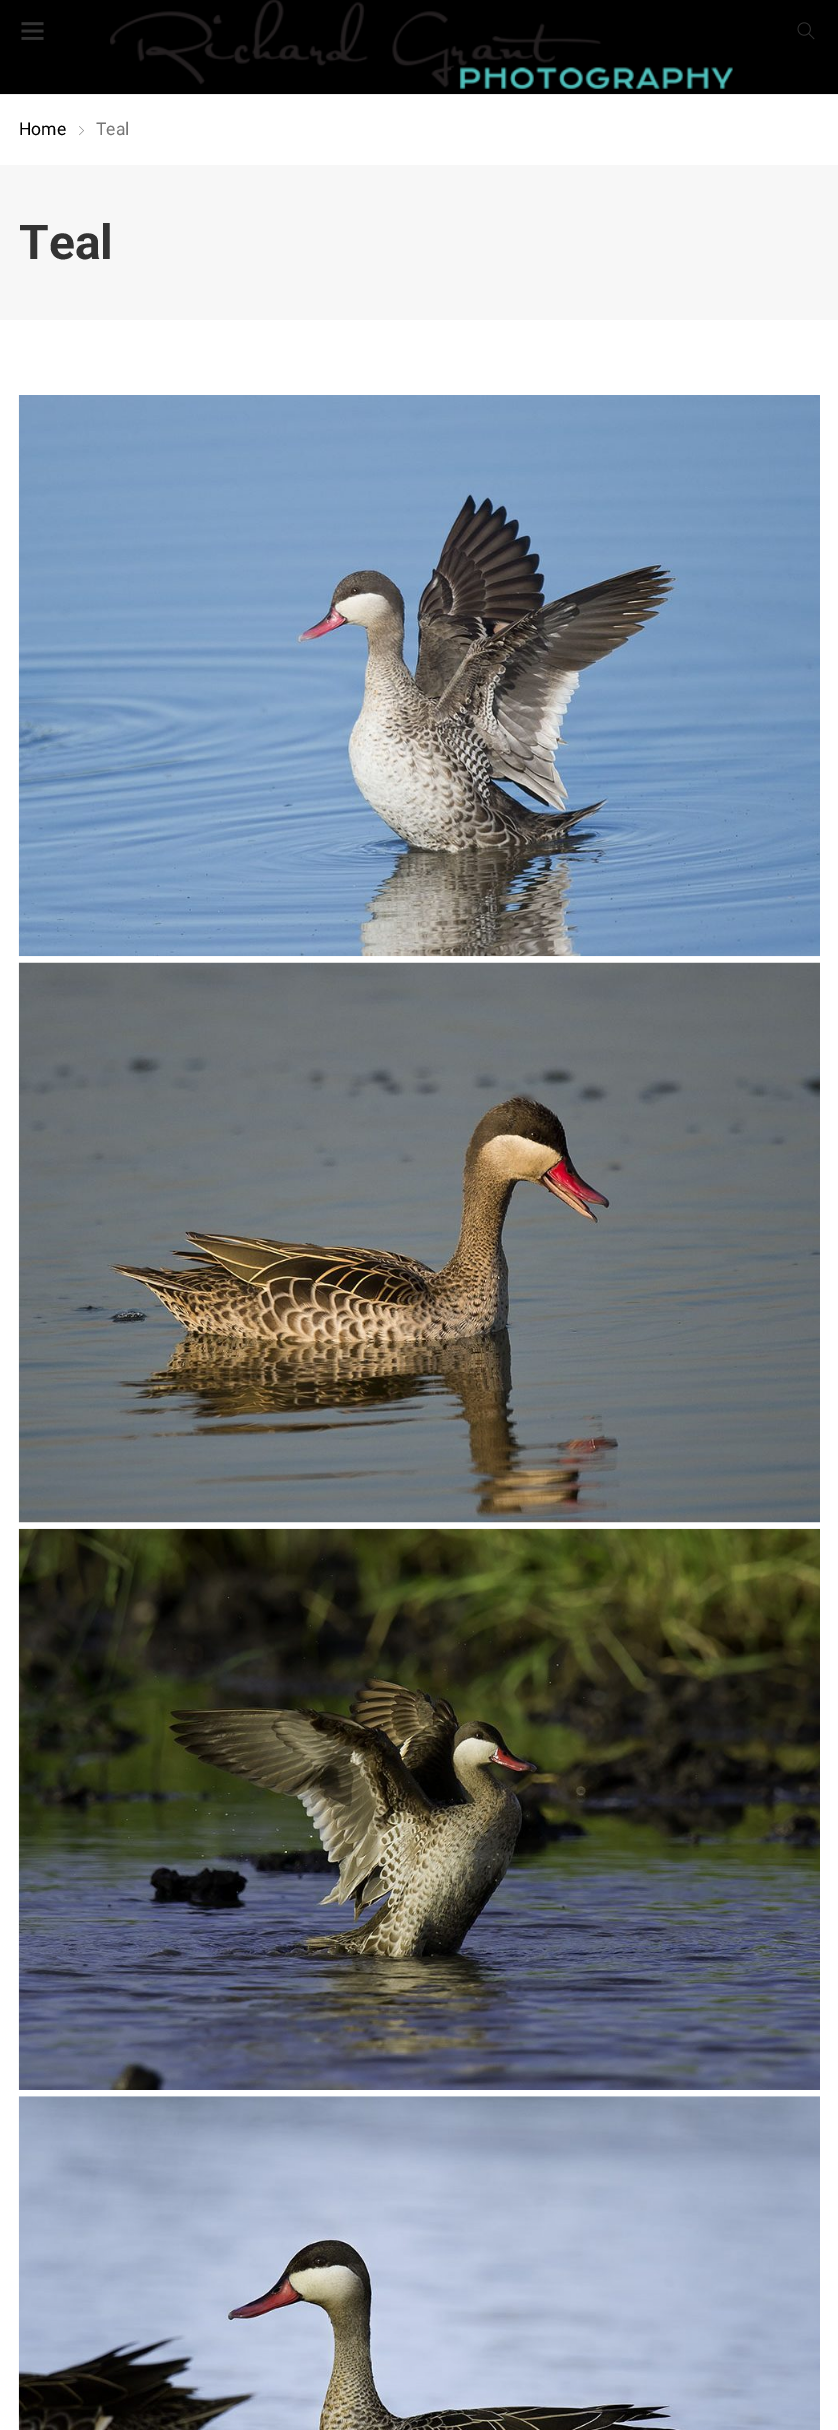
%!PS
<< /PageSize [838 2430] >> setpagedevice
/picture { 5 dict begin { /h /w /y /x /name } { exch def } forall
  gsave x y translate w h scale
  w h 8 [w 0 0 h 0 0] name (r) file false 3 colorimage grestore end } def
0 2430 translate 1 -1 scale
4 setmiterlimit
1 setgray
0 0 838 2430 rectfill
0 setgray
0 0 838 94 rectfill
0.933 setgray
0 94 838 1 rectfill
(img1.rgb) 21 22 23 18 picture
(img2.rgb) 110 0 623 89 picture
(img3.rgb) 797 22 18 18 picture
/Roboto-Regular [17.5 0 0 -17.5 0 0] selectfont
0 setgray
19 135 moveto (Home) show
(img4.rgb) 79 126 5 10 picture
0.467 setgray
96 135 moveto (Teal) show
0.969 setgray
0 165 838 155 rectfill
/Roboto-Bold [48 0 0 -48 0 0] selectfont
0.2 setgray
19 259 moveto (Teal) show
(img5.rgb) 18 395 802 562 picture
(img6.rgb) 18 962 802 561 picture
(img7.rgb) 18 1528 802 562 picture
(img8.rgb) 18 2096 802 334 picture
showpage
